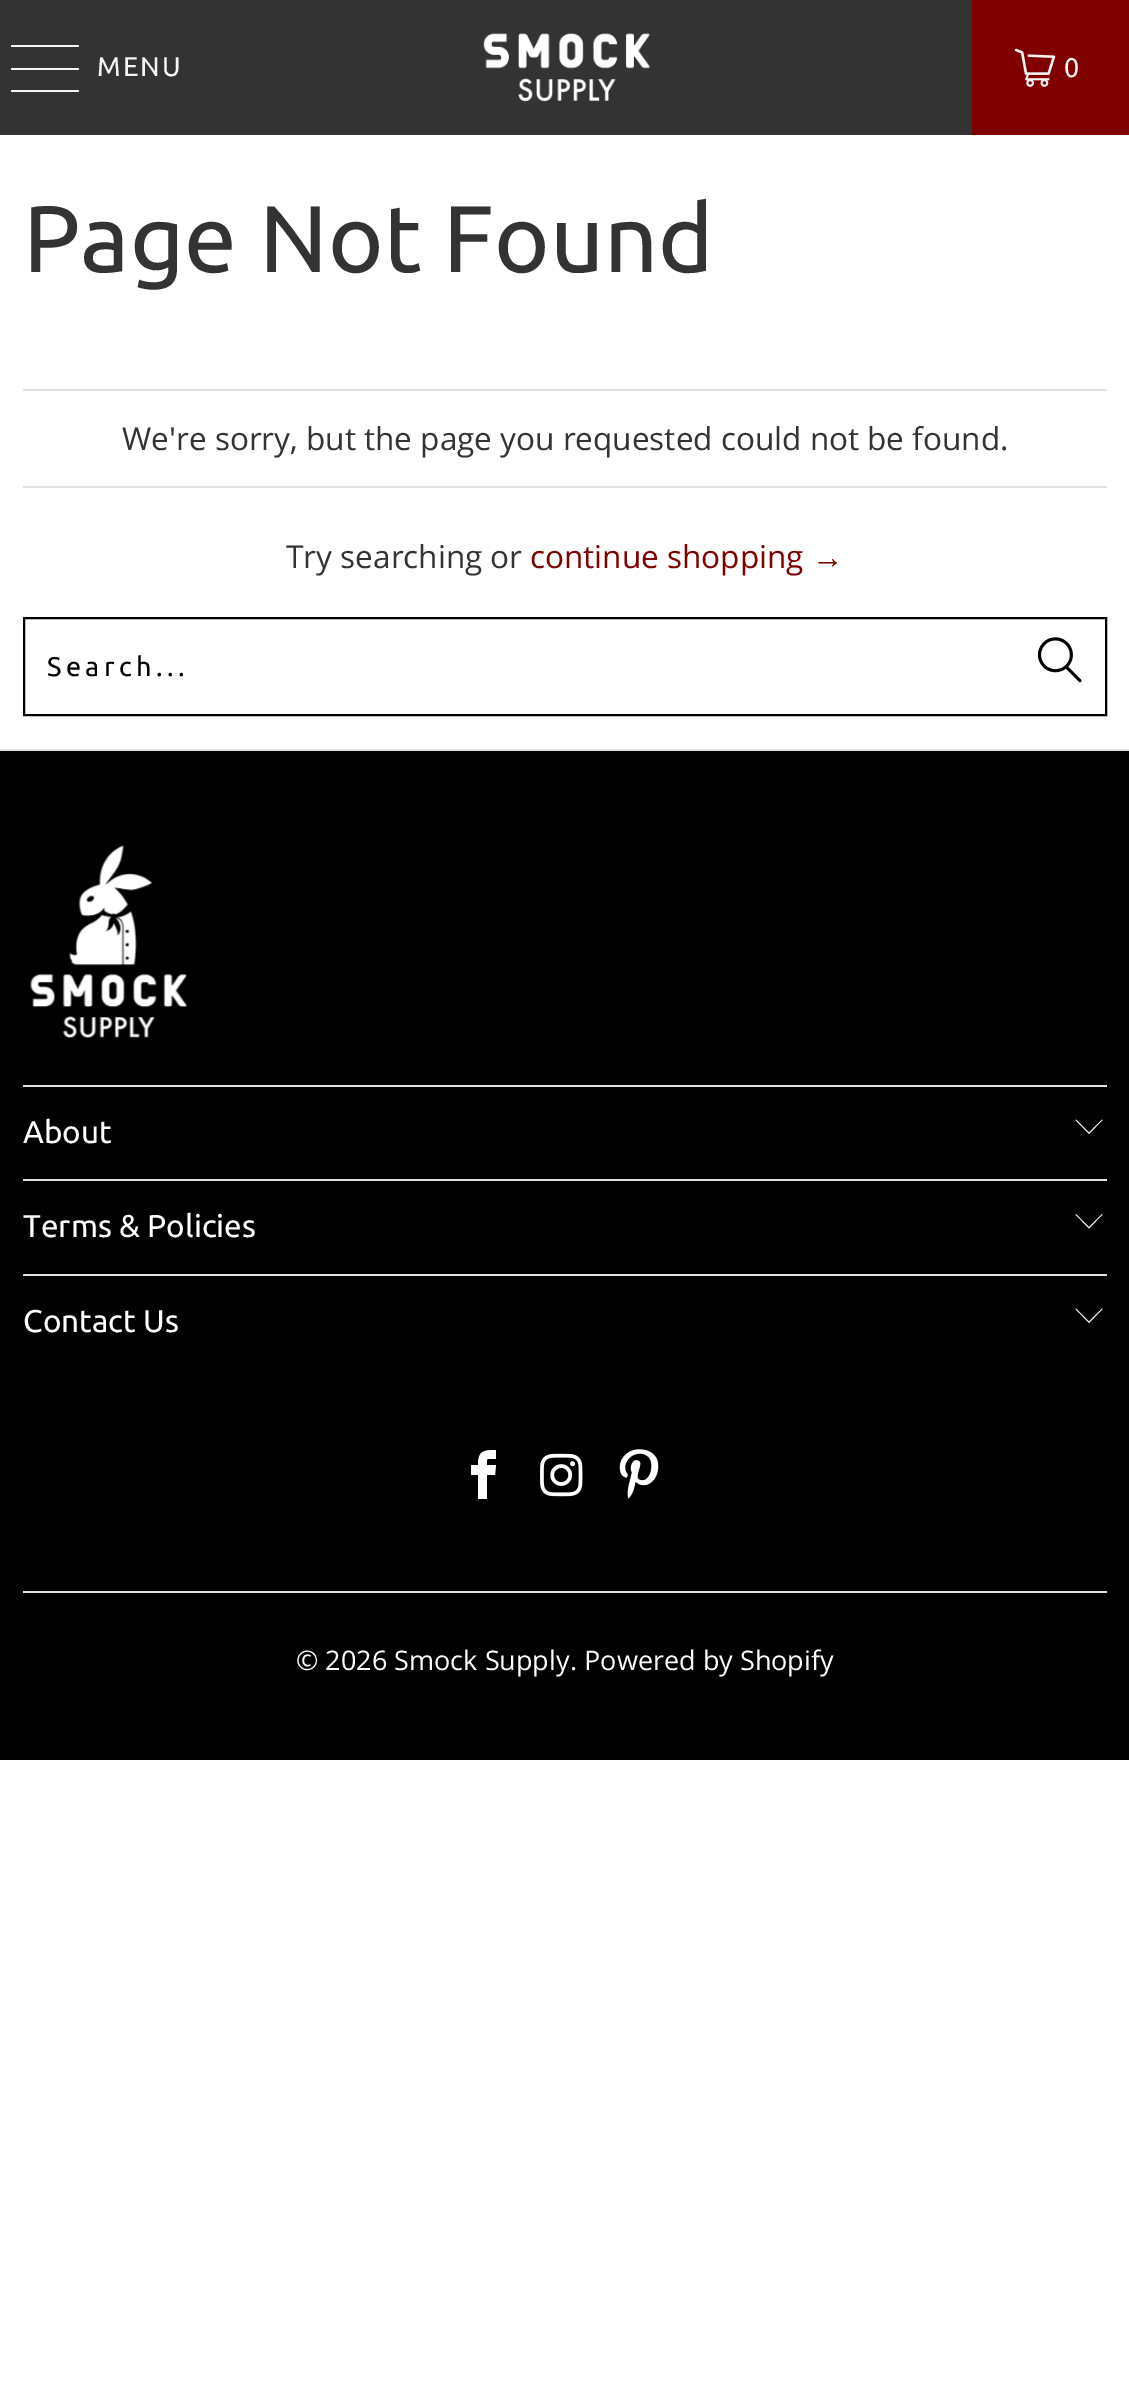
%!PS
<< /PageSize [1129 2404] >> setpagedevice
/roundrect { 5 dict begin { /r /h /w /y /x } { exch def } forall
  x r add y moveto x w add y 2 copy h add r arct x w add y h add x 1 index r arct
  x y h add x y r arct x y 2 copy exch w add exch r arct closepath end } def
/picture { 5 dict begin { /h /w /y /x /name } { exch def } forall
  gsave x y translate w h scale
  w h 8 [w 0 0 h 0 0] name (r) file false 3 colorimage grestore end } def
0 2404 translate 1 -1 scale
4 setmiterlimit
1 setgray
0 0 1129 2404 rectfill
0.2 setgray
0 0 972 135 rectfill
0.961 setgray
11 45 68 2 1 roundrect fill
11 68 68 2 1 roundrect fill
11 90 68 2 1 roundrect fill
/Ubuntu-Regular [27 0 0 -27 0 0] selectfont
97 76 moveto 2 0 (MENU) ashow
(img1.rgb) 483 33 167 69 picture
0.502 0 0 setrgbcolor
972 0 157 135 rectfill
(img2.rgb) 1014 48 42 39 picture
0.961 setgray
1064 77 moveto 2 0 (0) ashow
/Ubuntu-Regular [94.5 0 0 -94.5 0 0] selectfont
0.2 setgray
23 272 moveto (Page Not Found) show
0.882 setgray
23 389 1084 2 rectfill
23 486 1084 2 rectfill
/OpenSans-Regular [31.5 0 0 -31.5 0 0] selectfont
0.2 setgray
122 450 moveto (We're sorry, but the page you requested could not be found.) show
286 568 moveto (Try searching or) show
0.502 0 0 setrgbcolor
530 568 moveto (continue shopping) show
/LiberationSans-Regular [31.5 0 0 -31.5 0 0] selectfont
812 568 moveto (→) show
0 setgray
2 setlinewidth
24 618 1082 97 rectstroke
/Ubuntu-Regular [27 0 0 -27 0 0] selectfont
47 676 moveto 4.5 0 (Search...) ashow
(img3.rgb) 1037 637 45 46 picture
0 751 1129 1009 rectfill
0.882 setgray
0 749 1129 2 rectfill
(img4.rgb) 30 845 157 194 picture
23 1085 1084 2 rectfill
/Ubuntu-Regular [31.5 0 0 -31.5 0 0] selectfont
1 setgray
23 1143 moveto (About) show
newpath 1089 1134 moveto 1075.5 1120 lineto 1076 1119.5 lineto 1089 1132.5 lineto 1102 1119.5 lineto 1102.5 1120 lineto closepath fill
0.882 setgray
23 1179 1084 2 rectfill
1 setgray
23 1237 moveto (Terms & Policies) show
newpath 1089 1228.5 moveto 1075.5 1214.5 lineto 1076 1214 lineto 1089 1227 lineto 1102 1214 lineto 1102.5 1214.5 lineto closepath fill
0.882 setgray
23 1274 1084 2 rectfill
1 setgray
23 1332 moveto (Contact Us) show
newpath 1089 1323 moveto 1075.5 1309 lineto 1076 1308.5 lineto 1089 1321.5 lineto 1102 1308.5 lineto 1102.5 1309 lineto closepath fill
newpath 488 1459 moveto 496 1459 lineto 496 1450 lineto 483 1450 478 1451 478 1465 curveto 471 1465 lineto 471 1475 lineto 478 1475 lineto 478 1499 lineto 487 1499 lineto 487 1475 lineto 495 1475 lineto 496 1465 lineto 487 1465 lineto 487 1464 486 1459 488 1459 curveto closepath fill
(img5.rgb) 540 1453 43 44 picture
(img6.rgb) 619 1449 40 50 picture
0.882 setgray
23 1591 1084 2 rectfill
/OpenSans-Regular [27 0 0 -27 0 0] selectfont
1 setgray
296 1670 moveto (© 2026 Smock Supply) show
570 1670 moveto (. Powered by Shopify) show
showpage
